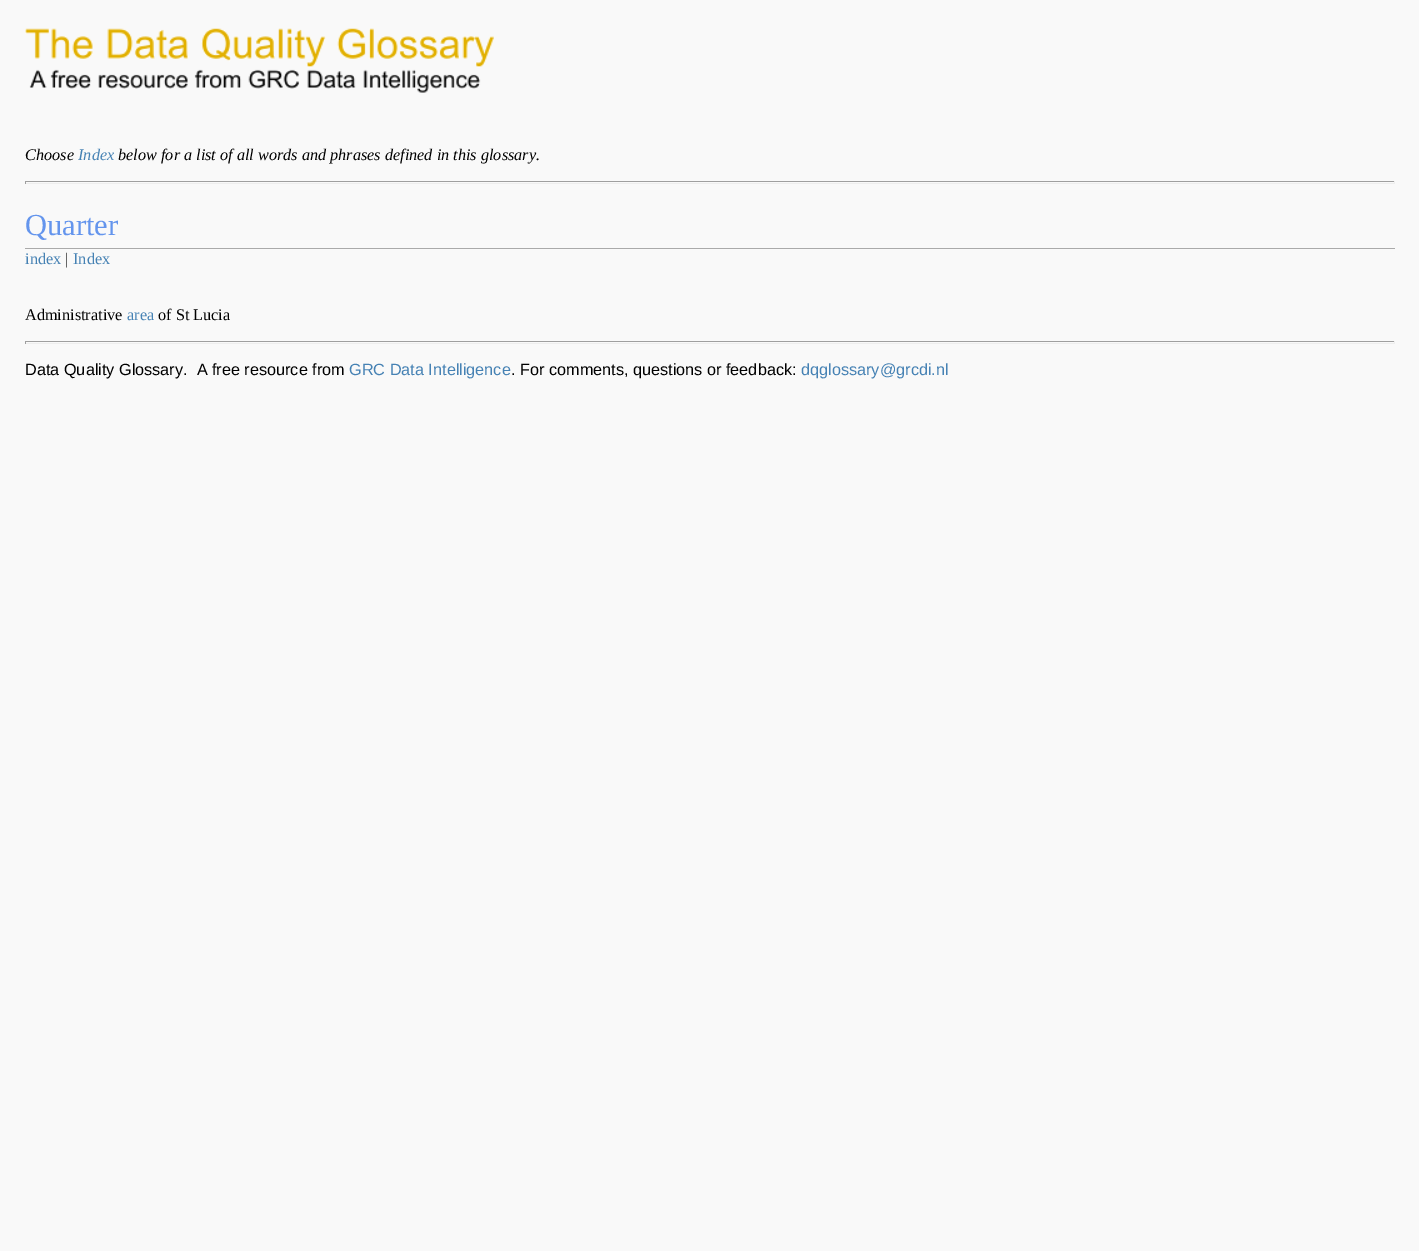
%!PS
<< /PageSize [1419 1251] >> setpagedevice
/picture { 5 dict begin { /h /w /y /x /name } { exch def } forall
  gsave x y translate w h scale
  w h 8 [w 0 0 h 0 0] name (r) file false 3 colorimage grestore end } def
0 1251 translate 1 -1 scale
4 setmiterlimit
0.976 setgray
0 0 1419 1251 rectfill
(img1.rgb) 25 28 469 65 picture
/LiberationSerif-Italic [16.25 0 0 -16.25 0 0] selectfont
0 setgray
25 160 moveto (Choose) show
0.275 0.51 0.706 setrgbcolor
78 160 moveto (Index) show
0 setgray
118 160 moveto (below for a list of all words and phrases defined in this glossary.) show
0.624 setgray
25 181 1370 1 rectfill
0.933 setgray
1394 181 1 3 rectfill
25 183 1370 1 rectfill
0.624 setgray
25 181 1 3 rectfill
0.667 setgray
25 248 1370 1 rectfill
/LiberationSerif-Regular [30.5 0 0 -30.5 0 0] selectfont
0.392 0.584 0.929 setrgbcolor
25 235 moveto (Quarter) show
/LiberationSerif-Regular [16.25 0 0 -16.25 0 0] selectfont
0.275 0.51 0.706 setrgbcolor
25 264 moveto (index) show
0.2 setgray
65 264 moveto (|) show
0.275 0.51 0.706 setrgbcolor
73 264 moveto (Index) show
0 setgray
25 320 moveto (Administrative) show
0.275 0.51 0.706 setrgbcolor
127 320 moveto (area) show
0 setgray
158 320 moveto (of St Lucia) show
0.624 setgray
25 341 1370 1 rectfill
0.933 setgray
1394 341 1 3 rectfill
25 343 1370 1 rectfill
0.624 setgray
25 341 1 3 rectfill
/LiberationSans-Regular [16.25 0 0 -16.25 0 0] selectfont
0 setgray
25 375 moveto (Data Quality Glossary.  A free resource from) show
0.275 0.51 0.706 setrgbcolor
349 375 moveto (GRC Data Intelligence) show
0 setgray
511 375 moveto (. For comments, questions or feedback:) show
0.275 0.51 0.706 setrgbcolor
801 375 moveto (dqglossary@grcdi.nl) show
showpage
